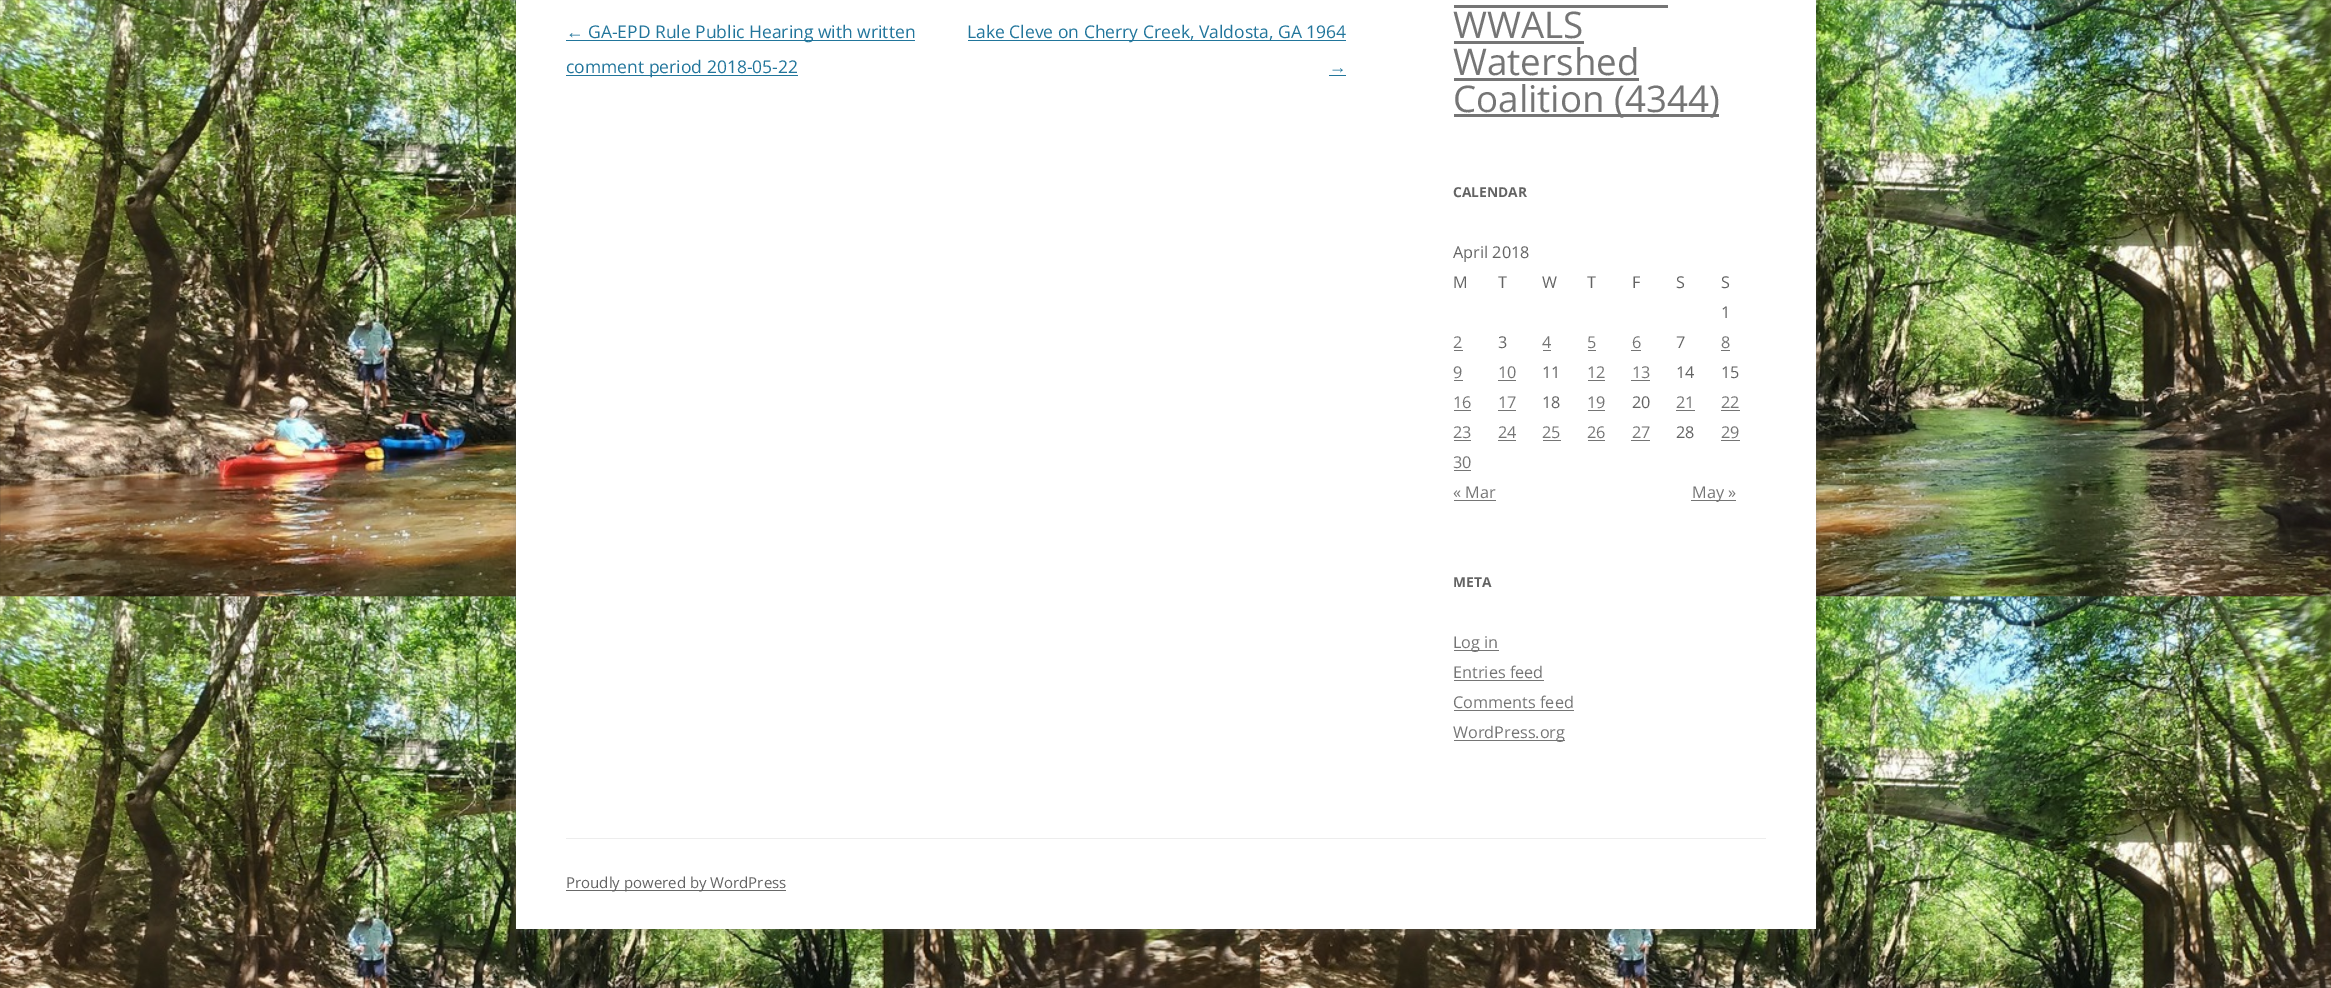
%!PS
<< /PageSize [2331 988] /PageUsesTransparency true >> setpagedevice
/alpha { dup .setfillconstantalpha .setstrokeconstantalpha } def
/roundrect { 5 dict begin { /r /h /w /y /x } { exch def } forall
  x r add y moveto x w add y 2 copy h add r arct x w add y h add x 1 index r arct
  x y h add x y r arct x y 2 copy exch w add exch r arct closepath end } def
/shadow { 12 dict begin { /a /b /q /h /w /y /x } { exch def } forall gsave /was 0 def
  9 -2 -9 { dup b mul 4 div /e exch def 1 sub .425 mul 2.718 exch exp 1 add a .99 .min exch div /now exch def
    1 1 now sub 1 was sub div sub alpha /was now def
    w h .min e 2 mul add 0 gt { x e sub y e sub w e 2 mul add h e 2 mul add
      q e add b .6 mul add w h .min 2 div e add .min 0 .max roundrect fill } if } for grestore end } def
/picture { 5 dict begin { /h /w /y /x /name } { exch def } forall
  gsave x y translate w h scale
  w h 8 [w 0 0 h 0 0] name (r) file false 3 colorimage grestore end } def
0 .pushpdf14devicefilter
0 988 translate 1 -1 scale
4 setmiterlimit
1 setgray
0 0 2331 988 rectfill
(img1.rgb) 0 0 2331 988 picture
0.392 setgray
516 -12 1300 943 0 4 0.3 shadow
1 setgray
516 0 1300 929 rectfill
/LiberationSans-Regular [17.5 0 0 -17.5 0 0] selectfont
0.129 0.459 0.608 setrgbcolor
566 38 moveto (←) show
566 40 349 1 rectfill
/OpenSans-Regular [17.5 0 0 -17.5 0 0] selectfont
588 38 moveto (GA-EPD Rule Public Hearing with written) show
566 75 232 1 rectfill
566 73 moveto (comment period 2018-05-22) show
968 40 378 1 rectfill
gsave
566 15 780 70 rectclip
967 38 moveto (Lake Cleve on Cherry Creek, Valdosta, GA 1964) show
grestore
/LiberationSans-Regular [17.5 0 0 -17.5 0 0] selectfont
1329 73 moveto (→) show
1329 75 17 1 rectfill
0.459 setgray
1454 5 214 3 rectfill
/OpenSans-Regular [36.75 0 0 -36.75 0 0] selectfont
1453 38 moveto (WWALS) show
1454 41 130 3 rectfill
1453 75 moveto (Watershed) show
1454 78 185 3 rectfill
1454 114 265 3 rectfill
1453 112 moveto (Coalition \(4344\)) show
/OpenSans-Bold [13.75 0 0 -13.75 0 0] selectfont
0.388 setgray
1453 197 moveto (CALENDAR) show
/OpenSans-Regular [16.25 0 0 -16.25 0 0] selectfont
1453 258 moveto (April 2018) show
1453 288 moveto (M) show
1498 288 moveto (T) show
1542 288 moveto (W) show
1587 288 moveto (T) show
1632 288 moveto (F) show
1676 288 moveto (S) show
1721 288 moveto (S) show
1721 318 moveto (1) show
0.459 setgray
1453 348 moveto (2) show
1454 350 9 1 rectfill
0.388 setgray
1498 348 moveto (3) show
0.459 setgray
1542 348 moveto (4) show
1543 350 8 1 rectfill
1587 348 moveto (5) show
1588 350 8 1 rectfill
1632 348 moveto (6) show
1631 350 10 1 rectfill
0.388 setgray
1676 348 moveto (7) show
0.459 setgray
1721 348 moveto (8) show
1721 350 9 1 rectfill
1453 378 moveto (9) show
1454 380 9 1 rectfill
1498 378 moveto (10) show
1498 380 18 1 rectfill
0.388 setgray
1542 378 moveto (11) show
0.459 setgray
1587 378 moveto (12) show
1588 380 17 1 rectfill
1632 378 moveto (13) show
1631 380 19 1 rectfill
0.388 setgray
1676 378 moveto (14) show
1721 378 moveto (15) show
0.459 setgray
1453 408 moveto (16) show
1454 410 17 1 rectfill
1498 408 moveto (17) show
1498 410 18 1 rectfill
0.388 setgray
1542 408 moveto (18) show
0.459 setgray
1587 408 moveto (19) show
1588 410 17 1 rectfill
0.388 setgray
1632 408 moveto (20) show
0.459 setgray
1676 408 moveto (21) show
1676 410 19 1 rectfill
1721 408 moveto (22) show
1721 410 19 1 rectfill
1453 438 moveto (23) show
1454 440 17 1 rectfill
1498 438 moveto (24) show
1498 440 18 1 rectfill
1542 438 moveto (25) show
1543 440 18 1 rectfill
1587 438 moveto (26) show
1588 440 17 1 rectfill
1632 438 moveto (27) show
1631 440 19 1 rectfill
0.388 setgray
1676 438 moveto (28) show
0.459 setgray
1721 438 moveto (29) show
1721 440 19 1 rectfill
1453 468 moveto (30) show
1454 470 17 1 rectfill
1453 498 moveto (« Mar) show
1454 500 42 1 rectfill
1691 500 45 1 rectfill
1692 498 moveto (May ») show
/OpenSans-Bold [13.75 0 0 -13.75 0 0] selectfont
0.388 setgray
1453 587 moveto (META) show
0.459 setgray
1454 650 45 1 rectfill
/OpenSans-Regular [16.25 0 0 -16.25 0 0] selectfont
1453 648 moveto (Log in) show
1453 678 moveto (Entries feed) show
1454 680 90 1 rectfill
1453 708 moveto (Comments feed) show
1454 710 120 1 rectfill
1454 740 111 1 rectfill
1453 738 moveto (WordPress.org) show
0.929 setgray
566 838 1200 1 rectfill
0.408 setgray
566 890 220 1 rectfill
/OpenSans-Regular [15 0 0 -15 0 0] selectfont
0.388 setgray
566 888 moveto (Proudly powered by WordPress) show
.poppdf14devicefilter showpage
